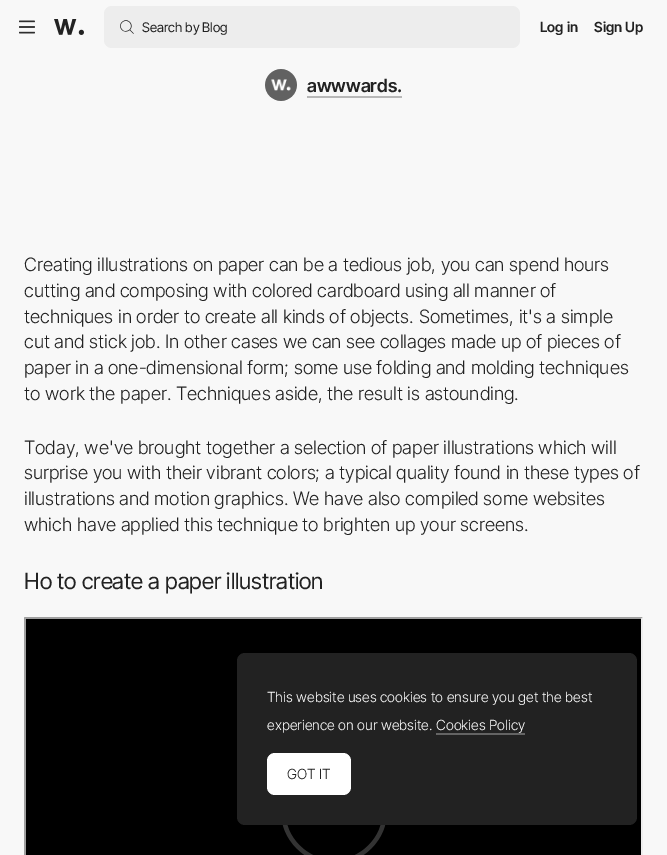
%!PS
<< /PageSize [667 855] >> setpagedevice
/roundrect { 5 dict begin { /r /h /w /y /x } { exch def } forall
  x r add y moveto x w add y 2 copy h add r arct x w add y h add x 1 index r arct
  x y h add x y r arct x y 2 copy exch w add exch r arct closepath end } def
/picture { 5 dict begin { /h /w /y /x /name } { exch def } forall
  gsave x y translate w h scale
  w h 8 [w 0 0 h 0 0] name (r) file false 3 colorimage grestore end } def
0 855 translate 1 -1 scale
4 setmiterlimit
0.973 setgray
0 0 667 855 rectfill
(img1.rgb) 19 20 16 14 picture
(img2.rgb) 54 19 30 16 picture
0.929 setgray
104 6 416 42 8 roundrect fill
(img3.rgb) 120 20 14 14 picture
/InterTight-Regular [13.25 0 0 -13.25 0 0] selectfont
0.133 setgray
142 32 moveto (Search by Blog) show
/InterTight-SemiBold [14 0 0 -14 0 0] selectfont
540 32 moveto (Log in) show
594 32 moveto (Sign Up) show
(img4.rgb) 265 69 32 32 picture
/InterTight-SemiBold [18.25 0 0 -18.25 0 0] selectfont
307 92 moveto (awwwards.) show
gsave newpath 307 96 moveto 402 96 lineto 402 98 lineto 307 98 lineto closepath clip newpath
<< /ShadingType 2 /ColorSpace /DeviceRGB /Coords [193 97 402 97] /Extend [true true] /Function << /FunctionType 3 /Domain [0 1] /Functions [<< /FunctionType 2 /Domain [0 1] /C0 [0.133 0.133 0.133] /C1 [0.133 0.133 0.133] /N 1 >> << /FunctionType 2 /Domain [0 1] /C0 [0.133 0.133 0.133] /C1 [0.722 0.722 0.722] /N 1 >> << /FunctionType 2 /Domain [0 1] /C0 [0.722 0.722 0.722] /C1 [0.722 0.722 0.722] /N 1 >>] /Bounds [0.45 0.55] /Encode [0 1 0 1 0 1] >> >> shfill grestore
/InterTight-Light [18.45 0 0 -18.45 0 0] selectfont
24 271 moveto (Creating illustrations on paper can be a tedious job, you can spend hours) show
24 297 moveto (cutting and composing with colored cardboard using all manner of) show
24 323 moveto (techniques in order to create all kinds of objects. Sometimes, it's a simple) show
24 348 moveto (cut and stick job. In other cases we can see collages made up of pieces of) show
24 374 moveto (paper in a one-dimensional form; some use folding and molding techniques) show
24 400 moveto (to work the paper. Techniques aside, the result is astounding.) show
24 454 moveto (Today, we've brought together a selection of paper illustrations which will) show
24 479 moveto (surprise you with their vibrant colors; a typical quality found in these types of) show
24 505 moveto (illustrations and motion graphics. We have also compiled some websites) show
24 531 moveto (which have applied this technique to brighten up your screens.) show
/InterTight-Regular [22.4 0 0 -22.4 0 0] selectfont
24 589 moveto (Ho to create a paper illustration) show
0.624 setgray
newpath 24 617 moveto 643 617 lineto 641 619 lineto 26 619 lineto closepath fill
0.933 setgray
newpath 643 617 moveto 643 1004 lineto 641 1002 lineto 641 619 lineto closepath fill
0.624 setgray
newpath 24 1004 moveto 24 617 lineto 26 619 lineto 26 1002 lineto closepath fill
(img5.rgb) 26 619 615 236 picture
0.133 setgray
237 653 400 172 8 roundrect fill
/InterTight-Light [14 0 0 -14 0 0] selectfont
1 setgray
267 702 moveto (This website uses cookies to ensure you get the best) show
267 730 moveto (experience on our website. Cookies Policy) show
gsave newpath 436 733 moveto 525 733 lineto 525 735 lineto 436 735 lineto closepath clip newpath
<< /ShadingType 2 /ColorSpace /DeviceRGB /Coords [329 734 525 734] /Extend [true true] /Function << /FunctionType 3 /Domain [0 1] /Functions [<< /FunctionType 2 /Domain [0 1] /C0 [1 1 1] /C1 [1 1 1] /N 1 >> << /FunctionType 2 /Domain [0 1] /C0 [1 1 1] /C1 [0.392 0.392 0.392] /N 1 >> << /FunctionType 2 /Domain [0 1] /C0 [0.392 0.392 0.392] /C1 [0.392 0.392 0.392] /N 1 >>] /Bounds [0.45 0.55] /Encode [0 1 0 1 0 1] >> >> shfill grestore
267 753 84 42 8 roundrect fill
0.133 setgray
287 779 moveto (GOT IT) show
showpage
